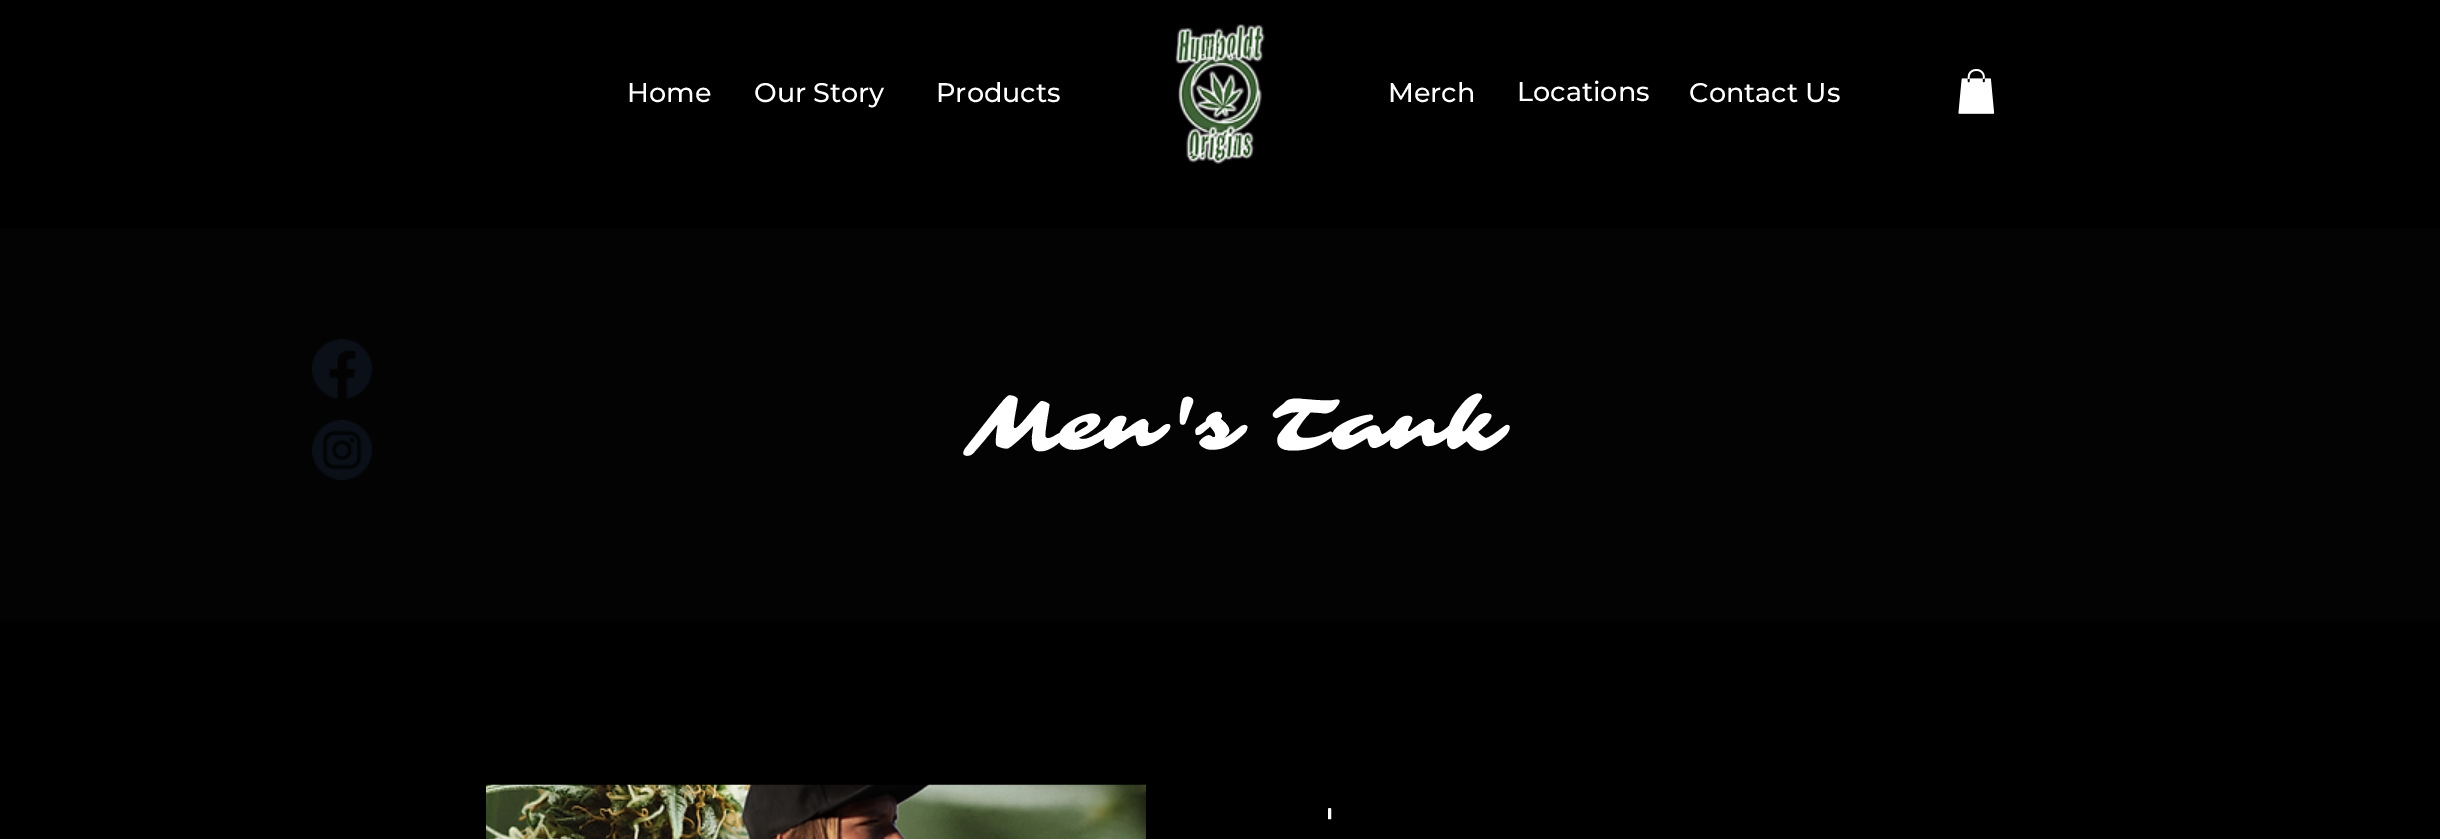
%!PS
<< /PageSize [2440 839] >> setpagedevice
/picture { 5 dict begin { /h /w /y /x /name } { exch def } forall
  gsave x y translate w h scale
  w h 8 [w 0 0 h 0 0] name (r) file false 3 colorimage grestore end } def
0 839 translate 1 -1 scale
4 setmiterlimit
0 setgray
0 0 2440 839 rectfill
/Montserrat-Medium [27 0 0 -27 0 0] selectfont
1 setgray
627 102 moveto (Home) show
754 102 moveto (Our Story) show
936 102 moveto (Products) show
(img1.rgb) 1175 24 90 140 picture
1388 102 moveto (Merch) show
1517 101 moveto (Locations) show
1689 102 moveto (Contact Us) show
(img2.rgb) 1958 69 37 45 picture
0.012 setgray
0 228 2440 393 rectfill
(img3.rgb) 312 339 60 60 picture
(img4.rgb) 312 420 60 60 picture
/Sarina-Regular [73.5 0 0 -73.5 0 0] selectfont
1 setgray
967 449 moveto (Men's Tank) show
(img5.rgb) 486 784 660 55 picture
/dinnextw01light-Light [69 0 0 -69 0 0] selectfont
1323 855 moveto (') show
showpage
